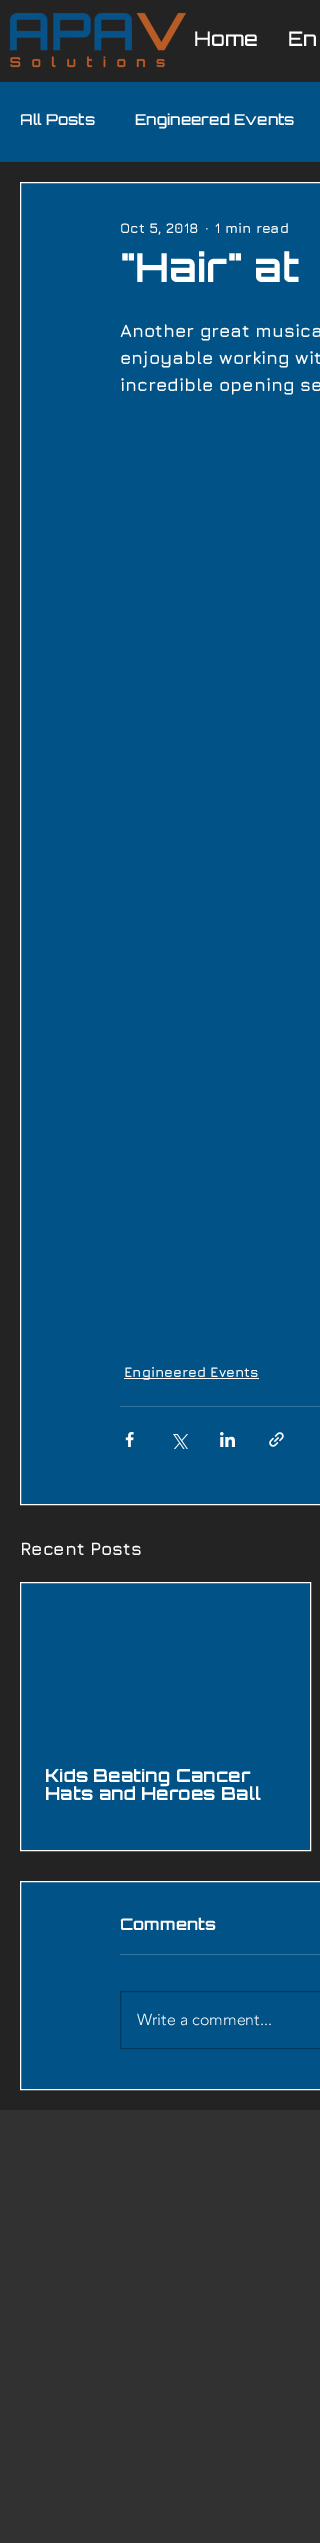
%!PS
<< /PageSize [320 2543] >> setpagedevice
/picture { 5 dict begin { /h /w /y /x /name } { exch def } forall
  gsave x y translate w h scale
  w h 8 [w 0 0 h 0 0] name (r) file false 3 colorimage grestore end } def
0 2543 translate 1 -1 scale
4 setmiterlimit
0.192 setgray
0 0 320 2543 rectfill
0.141 0.137 0.137 setrgbcolor
0 0 320 82 rectfill
(img1.rgb) 9 12 177 56 picture
/Orbitron-Medium [20 0 0 -20 0 0] selectfont
1 setgray
194 46 moveto (Home) show
288 46 moveto (En) show
0.141 0.137 0.137 setrgbcolor
0 162 320 1948 rectfill
0 0.322 0.529 setrgbcolor
0 82 320 80 rectfill
/Orbitron-Medium [15 0 0 -15 0 0] selectfont
1 setgray
20 125 moveto (All Posts) show
135 125 moveto (Engineered Events) show
0 0.322 0.529 setrgbcolor
newpath 20.5 182.5 moveto 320.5 182.5 lineto 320.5 1504.5 lineto 20.5 1504.5 lineto closepath gsave fill grestore
1 setgray
stroke
/Jura-Bold [14 0 0 -14 0 0] selectfont
120 233 moveto (Oct 5, 2018) show
205 233 moveto (·) show
215 233 moveto (1 min read) show
/Orbitron-Bold [40 0 0 -40 0 0] selectfont
120 282 moveto ("Hair" at) show
/Jura-Bold [18 0 0 -18 0 0] selectfont
120 337 moveto (Another great musica) show
120 364 moveto (enjoyable working wit) show
120 391 moveto (incredible opening se) show
124 1378 135 1 rectfill
/Jura-Bold [14 0 0 -14 0 0] selectfont
124 1377 moveto (Engineered Events) show
0.2 0.459 0.624 setrgbcolor
120 1406 200 1 rectfill
(img2.rgb) 125 1432 9 15 picture
(img3.rgb) 173 1434 15 15 picture
(img4.rgb) 220 1432 15 15 picture
(img5.rgb) 269 1432 15 15 picture
/Jura-Bold [18 0 0 -18 0 0] selectfont
1 setgray
20 1555 moveto (Recent Posts) show
0 0.322 0.529 setrgbcolor
newpath 20.5 1582.5 moveto 310.5 1582.5 lineto 310.5 1850.5 lineto 20.5 1850.5 lineto closepath gsave fill grestore
1 setgray
stroke
gsave
45 1769 241 36 rectclip
/Orbitron-Bold [18 0 0 -18 0 0] selectfont
45 1782 moveto (Kids Beating Cancer) show
grestore
/Orbitron-Bold [18 0 0 -18 0 0] selectfont
45 1800 moveto (Hats and Heroes Ball) show
0 0.322 0.529 setrgbcolor
newpath 20.5 1881.5 moveto 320.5 1881.5 lineto 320.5 2089.5 lineto 20.5 2089.5 lineto closepath gsave fill grestore
1 setgray
stroke
/Orbitron-Bold [16 0 0 -16 0 0] selectfont
120 1930 moveto (Comments) show
0.2 0.459 0.624 setrgbcolor
120 1954 200 1 rectfill
0 0.224 0.373 setrgbcolor
120.5 1991.5 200 57 rectstroke
/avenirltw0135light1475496-Light [16 0 0 -16 0 0] selectfont
1 setgray
137 2025 moveto (Write a comment...) show
showpage
